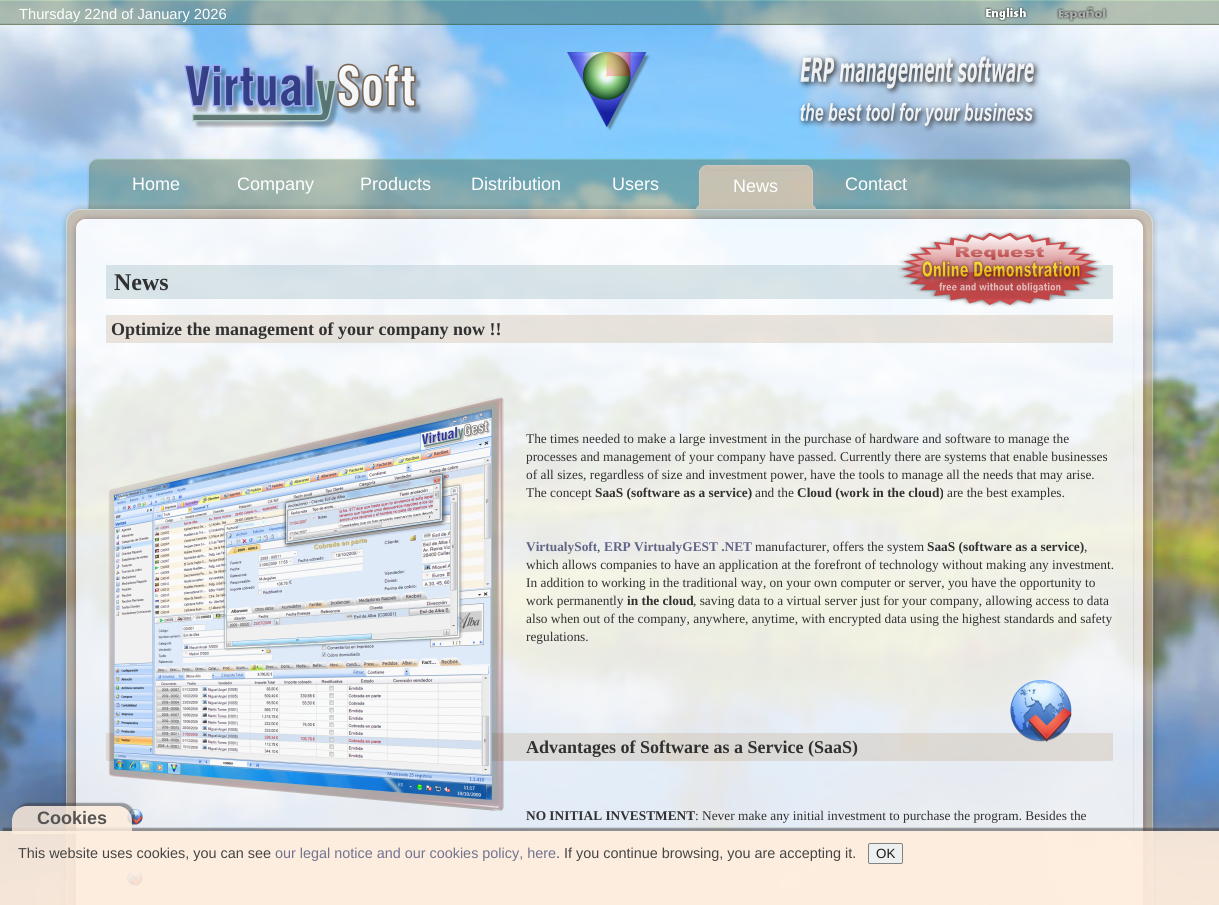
import math
import cairo

surface = cairo.ImageSurface(cairo.Format.RGB24, 1219, 905)
ctx = cairo.Context(surface)
options = cairo.FontOptions()
options.set_hint_metrics(cairo.HintMetrics.OFF)
options.set_hint_style(cairo.HintStyle.NONE)
ctx.set_font_options(options)
ctx.set_miter_limit(4)


def ink(r, g, b):
    ctx.set_source_rgb(r / 255, g / 255, b / 255)


def write(x, y, s, family, size, color, bold=False, italic=False):
    ctx.select_font_face(family, cairo.FontSlant.ITALIC if italic else cairo.FontSlant.NORMAL, cairo.FontWeight.BOLD if bold else cairo.FontWeight.NORMAL)
    ctx.set_font_size(size)
    ink(*color)
    ctx.move_to(x, y)
    ctx.show_text(s)


def round_path(x, y, w, h, r):
    ctx.new_sub_path()
    for i, (u, v) in enumerate([(x + w - r, y + h - r), (x + r, y + h - r), (x + r, y + r), (x + w - r, y + r)]):
        ctx.arc(u, v, r, i * math.pi / 2, (i + 1) * math.pi / 2)
    ctx.close_path()


def blur_box(x, y, w, h, r, blur, alpha):
    ctx.push_group_with_content(cairo.Content.ALPHA)
    ctx.set_operator(cairo.Operator.SOURCE)
    for i in range(15, -16, -2):
        e = blur * i / 6
        if min(w, h) + 2 * e > 0:
            ctx.set_source_rgba(0, 0, 0, alpha * math.erfc((i - 1) / 8.5) / 2)
            round_path(x - e, y - e, w + 2 * e, h + 2 * e, max(0, min(r + e + blur * .6, min(w, h) / 2 + e)))
            ctx.fill()
    ctx.mask(ctx.pop_group())


def paste(path, x, y, w, h):
    ctx.save()
    ctx.set_source_surface(cairo.ImageSurface.create_from_png(path), x, y)
    ctx.rectangle(x, y, w, h)
    ctx.fill()
    ctx.restore()


s1 = dict(family="Liberation Sans", size=14.7, color=(255, 255, 255))
s2 = dict(family="Liberation Sans", size=18, color=(255, 255, 255))
s3 = dict(family="Liberation Serif", size=24, color=(49, 49, 49), bold=True)
s4 = dict(family="Liberation Serif", size=18, color=(49, 49, 49), bold=True)
s5 = dict(family="Liberation Serif", size=13.35, color=(49, 49, 49))
s6 = dict(family="Liberation Serif", size=13.35, color=(49, 49, 49), bold=True)
s7 = dict(family="Liberation Serif", size=13.35, color=(98, 101, 134), bold=True)
s8 = dict(family="Liberation Sans", size=18, color=(86, 84, 82), bold=True)
s9 = dict(family="Liberation Sans", size=14.4, color=(71, 69, 68))
s10 = dict(family="Liberation Sans", size=14.4, color=(113, 115, 143))
s11 = dict(family="Liberation Sans", size=13.35, color=(23, 24, 24))

ink(255, 255, 255)
ctx.paint()
paste("pic1.png", 0, 0, 1219, 905)
paste("pic2.png", 0, 0, 1219, 25)
write(19, 19, "Thursday 22nd of January 2026", **s1)
paste("pic3.png", 984, 7, 44, 15)
paste("pic4.png", 1056, 6, 52, 16)
paste("pic5.png", 184, 63, 238, 65)
paste("pic6.png", 567, 52, 83, 79)
paste("pic7.png", 798, 54, 243, 78)
paste("pic16.png", 86, 204, 1047, 25)
paste("pic8.png", 87, 158, 14, 51)
paste("pic9.png", 1118, 158, 14, 51)
paste("pic10.png", 101, 158, 1017, 51)
write(132, 190, "Home", **s2)
write(237, 190, "Company", **s2)
write(360, 190, "Products", **s2)
write(471, 190, "Distribution", **s2)
write(612, 190, "Users", **s2)
paste("pic11.png", 696, 165, 120, 44)
paste("pic12.png", 696, 165, 120, 44)
paste("pic13.png", 696, 165, 120, 44)
write(733, 192, "News", **s2)
write(845, 190, "Contact", **s2)
paste("pic14.png", 61, 204, 25, 25)
paste("pic15.png", 1133, 204, 25, 25)
paste("pic17.png", 61, 229, 10, 676)
paste("pic18.png", 1148, 229, 10, 676)
paste("pic19.png", 71, 229, 15, 676)
paste("pic20.png", 1133, 229, 15, 676)
ctx.set_source_rgba(1, 1, 1, 0.85)
ctx.rectangle(86, 229, 1047, 676)
ctx.fill()
ctx.set_source_rgba(0.643, 0.745, 0.776, 0.38)
ctx.rectangle(106, 265, 1007, 34)
ctx.fill()
paste("pic21.png", 897, 231, 206, 76)
write(114, 290, "News", **s3)
ctx.set_source_rgba(0.765, 0.671, 0.553, 0.3)
ctx.rectangle(106, 315, 1007, 28)
ctx.fill()
write(111, 335, "Optimize the management of your company now !!", **s4)
ctx.set_source_rgba(0.765, 0.671, 0.553, 0.3)
ctx.rectangle(106, 733, 1007, 28)
ctx.fill()
paste("pic24.png", 127, 809, 16, 16)
paste("pic22.png", 108, 396, 396, 416)
write(526, 443, "The times needed to make a large investment in the purchase of hardware and software to manage the", **s5)
write(526, 461, "processes and management of your company have passed. Currently there are systems that enable businesses", **s5)
write(526, 479, "of all sizes, regardless of size and investment power, have the tools to manage all the needs that may arise.", **s5)
write(526, 497, "The concept", **s5)
write(595, 497, "SaaS (software as a service)", **s6)
write(755, 497, "and the", **s5)
write(797, 497, "Cloud (work in the cloud)", **s6)
write(947, 497, "are the best examples.", **s5)
write(526, 551, "VirtualySoft", **s7)
write(597, 551, ",", **s5)
write(604, 551, "ERP VirtualyGEST .NET", **s7)
write(755, 551, "manufacturer, offers the system", **s5)
write(927, 551, "SaaS (software as a service)", **s6)
write(1084, 551, ",", **s5)
write(526, 569, "which allows companies to have an application at the forefront of technology without making any investment.", **s5)
write(526, 587, "In addition to working in the traditional way, on your own computer or server, you have the opportunity to", **s5)
write(526, 605, "work permanently", **s5)
write(627, 605, "in the cloud", **s6)
write(693, 605, ", saving data to a virtual server just for your company, allowing access to data", **s5)
write(526, 623, "also when out of the company, anywhere, anytime, with encrypted data using the highest standards and safety", **s5)
write(526, 641, "regulations.", **s5)
paste("pic23.png", 1010, 680, 62, 63)
write(526, 753, "Advantages of Software as a Service (SaaS)", **s4)
write(526, 820, "NO INITIAL INVESTMENT", **s6)
write(695, 820, ": Never make any initial investment to purchase the program. Besides the", **s5)
paste("pic25.png", 127, 870, 16, 16)
ctx.save()
ctx.rectangle(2, 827, 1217, 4)
ctx.clip()
ink(50, 50, 50)
blur_box(3, 828, 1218, 74, 0, 0.5, 0.5)
ctx.restore()
ctx.set_source_rgba(1, 0.933, 0.867, 0.9)
ctx.rectangle(0, 831, 1219, 74)
ctx.fill()
ctx.save()
ctx.set_fill_rule(cairo.FillRule.EVEN_ODD)
ctx.new_path()
ctx.move_to(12, 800)
ctx.line_to(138, 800)
ctx.line_to(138, 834)
ctx.line_to(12, 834)
ctx.close_path()
ctx.move_to(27, 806)
ctx.line_to(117, 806)
ctx.curve_to(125.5, 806, 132, 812.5, 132, 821)
ctx.line_to(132, 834)
ctx.line_to(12, 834)
ctx.line_to(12, 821)
ctx.curve_to(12, 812.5, 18.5, 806, 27, 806)
ctx.close_path()
ctx.clip()
ink(50, 50, 50)
blur_box(15, 803, 120, 28, 15, 0.5, 0.45)
ctx.restore()
ctx.set_source_rgba(1, 0.933, 0.867, 0.81)
ctx.new_path()
ctx.move_to(27, 806)
ctx.line_to(117, 806)
ctx.curve_to(125.5, 806, 132, 812.5, 132, 821)
ctx.line_to(132, 834)
ctx.line_to(12, 834)
ctx.line_to(12, 821)
ctx.curve_to(12, 812.5, 18.5, 806, 27, 806)
ctx.close_path()
ctx.fill()
write(37, 824, "Cookies", **s8)
write(18, 858, "This website uses cookies, you can see", **s9)
write(275, 858, "our legal notice and our cookies policy, here", **s10)
write(556, 858, ". If you continue browsing, you are accepting it.", **s9)
ink(238, 239, 239)
round_path(868.5, 843.5, 34, 20, 1.5)
ctx.fill_preserve()
ink(129, 130, 130)
ctx.set_line_width(1)
ctx.stroke()
write(876, 858, "OK", **s11)
surface.write_to_png("screenshot.png")
